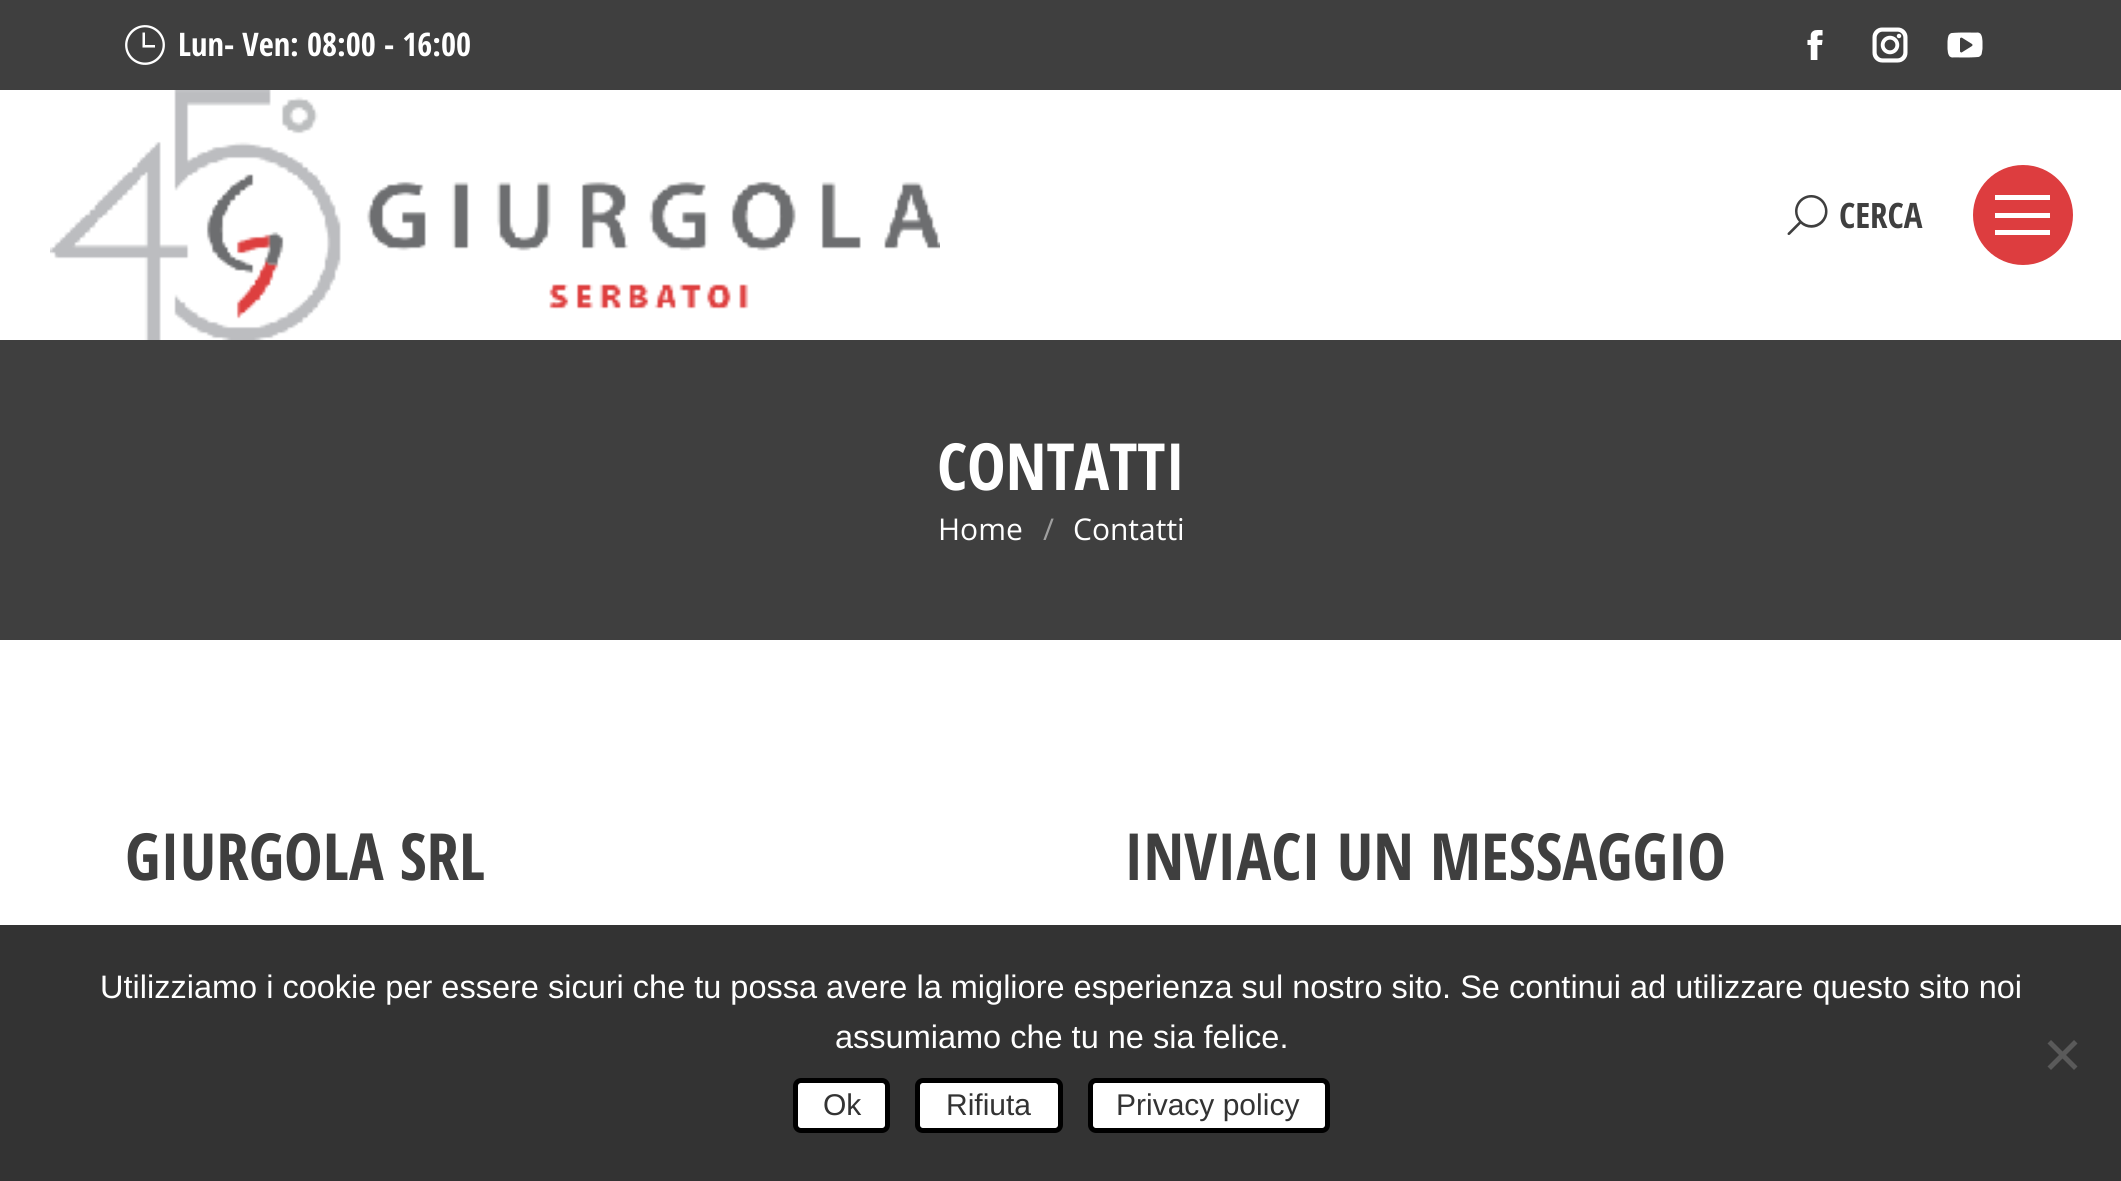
import math
import cairo

surface = cairo.ImageSurface(cairo.Format.RGB24, 2121, 1181)
ctx = cairo.Context(surface)
options = cairo.FontOptions()
options.set_hint_metrics(cairo.HintMetrics.OFF)
options.set_hint_style(cairo.HintStyle.NONE)
ctx.set_font_options(options)
ctx.set_miter_limit(4)


def ink(r, g, b):
    ctx.set_source_rgb(r / 255, g / 255, b / 255)


def write(x, y, s, family, size, color, bold=False, italic=False):
    ctx.select_font_face(family, cairo.FontSlant.ITALIC if italic else cairo.FontSlant.NORMAL, cairo.FontWeight.BOLD if bold else cairo.FontWeight.NORMAL)
    ctx.set_font_size(size)
    ink(*color)
    ctx.move_to(x, y)
    ctx.show_text(s)


def block(x, y, w, h, *color):
    ink(*color)
    ctx.rectangle(x, y, w, h)
    ctx.fill()


def round_path(x, y, w, h, r):
    ctx.new_sub_path()
    for i, (u, v) in enumerate([(x + w - r, y + h - r), (x + r, y + h - r), (x + r, y + r), (x + w - r, y + r)]):
        ctx.arc(u, v, r, i * math.pi / 2, (i + 1) * math.pi / 2)
    ctx.close_path()


def paste(path, x, y, w, h):
    ctx.save()
    ctx.set_source_surface(cairo.ImageSurface.create_from_png(path), x, y)
    ctx.rectangle(x, y, w, h)
    ctx.fill()
    ctx.restore()


s1 = dict(family="Open Sans Condensed", size=32.5, color=(255, 255, 255), bold=True)
s2 = dict(family="Open Sans Condensed", size=35, color=(63, 63, 63), bold=True)
s3 = dict(family="Open Sans Condensed", size=65, color=(255, 255, 255), bold=True)
s4 = dict(family="Open Sans", size=30, color=(255, 255, 255))
s5 = dict(family="Open Sans", size=30, color=(159, 159, 159))
s6 = dict(family="Open Sans Condensed", size=65, color=(63, 63, 63), bold=True)
s7 = dict(family="Liberation Sans", size=32.5, color=(255, 255, 255))
s8 = dict(family="Liberation Sans", size=30, color=(51, 51, 51))

ink(255, 255, 255)
ctx.paint()
block(0, 0, 2121, 90, 63, 63, 63)
paste("pic1.png", 125, 25, 40, 40)
write(178, 56, "Lun- Ven: 08:00 - 16:00", **s1)
paste("pic2.png", 1807, 30, 16, 30)
paste("pic3.png", 1872, 27, 36, 36)
paste("pic4.png", 1947, 32, 36, 26)
paste("pic5.png", 50, 90, 890, 250)
paste("pic6.png", 1787, 195, 41, 40)
write(1839, 228, "CERCA", **s2)
ink(221, 61, 63)
ctx.new_path()
ctx.arc(2023, 215, 50, 0, 2 * math.pi)
ctx.fill()
block(1995, 195, 55, 5, 255, 255, 255)
block(1995, 213, 55, 5, 255, 255, 255)
block(1995, 230, 55, 5, 255, 255, 255)
block(0, 340, 2121, 300, 63, 63, 63)
write(937, 490, "CONTATTI", **s3)
write(938, 540, "Home", **s4)
write(1043, 540, "/", **s5)
write(1073, 540, "Contatti", **s4)
write(125, 880, "GIURGOLA SRL", **s6)
write(1124, 880, "INVIACI UN MESSAGGIO", **s6)
block(0, 925, 2121, 256, 51, 51, 51)
write(100, 998, "Utilizziamo i cookie per essere sicuri che tu possa avere la migliore esperienza sul nostro sito. Se continui ad utilizzare questo sito noi", **s7)
write(835, 1048, "assumiamo che tu ne sia felice.", **s7)
ink(90, 90, 90)
ctx.new_path()
ctx.move_to(2074, 1040)
ctx.line_to(2077.5, 1043.5)
ctx.line_to(2051, 1070)
ctx.line_to(2047.5, 1066.5)
ctx.close_path()
ctx.fill()
ctx.new_path()
ctx.move_to(2047.5, 1043.5)
ctx.line_to(2051, 1040)
ctx.line_to(2077.5, 1066.5)
ctx.line_to(2074, 1070)
ctx.close_path()
ctx.fill()
ink(255, 255, 255)
round_path(795.5, 1080.5, 92, 50, 5.5)
ctx.fill_preserve()
ink(0, 0, 0)
ctx.set_line_width(5)
ctx.stroke()
write(823, 1115, "Ok", **s8)
ink(255, 255, 255)
round_path(917.5, 1080.5, 143, 50, 5.5)
ctx.fill_preserve()
ink(0, 0, 0)
ctx.stroke()
write(946, 1115, "Rifiuta", **s8)
ink(255, 255, 255)
round_path(1090.5, 1080.5, 237, 50, 5.5)
ctx.fill_preserve()
ink(0, 0, 0)
ctx.stroke()
write(1116, 1115, "Privacy policy", **s8)
surface.write_to_png("screenshot.png")
